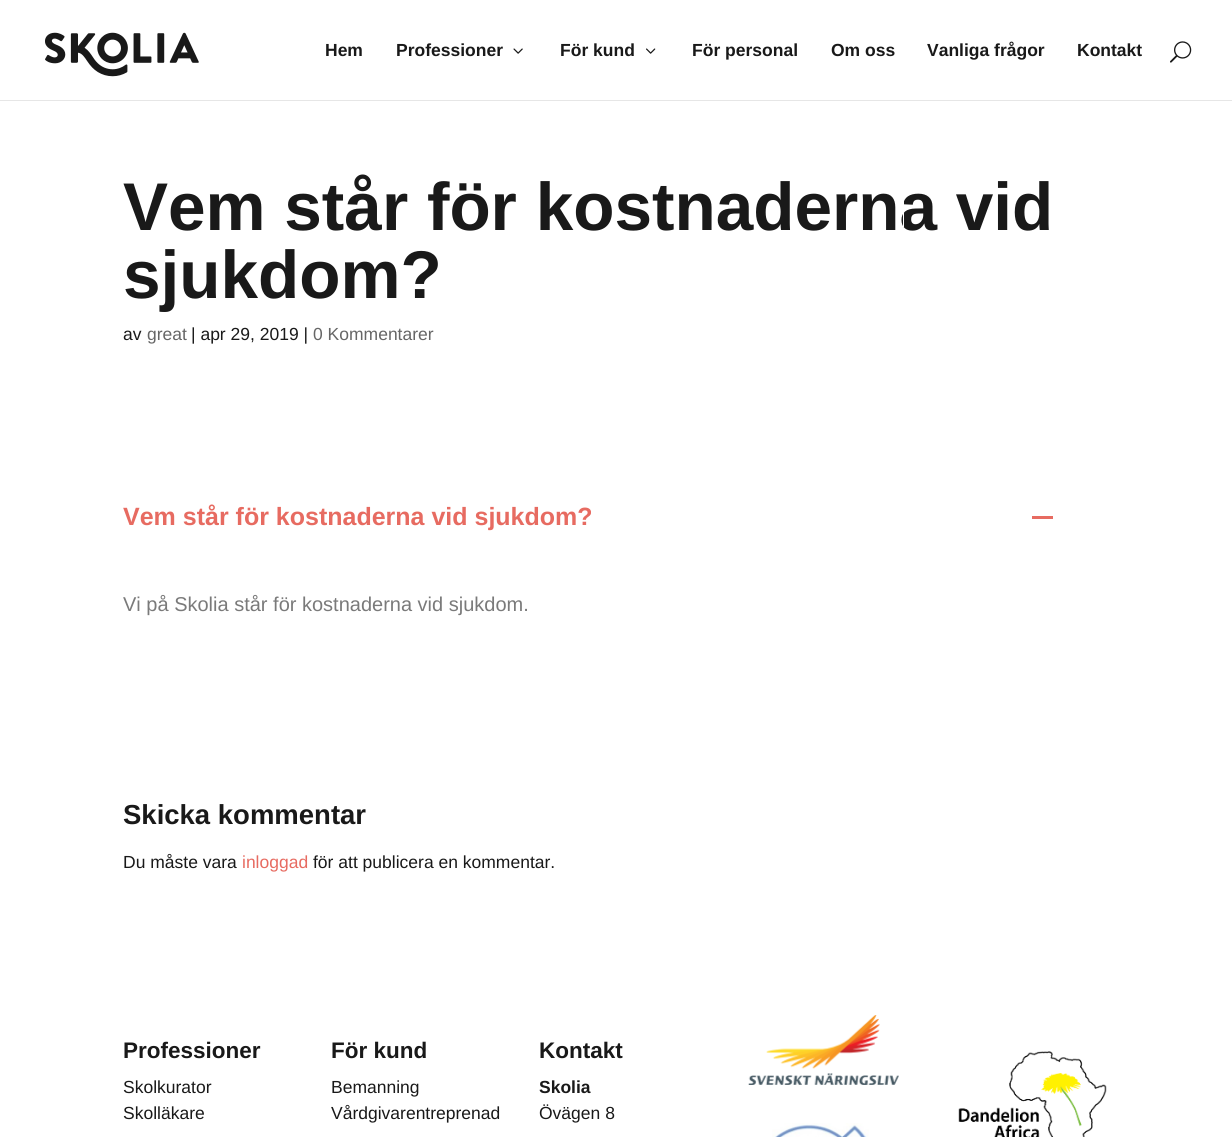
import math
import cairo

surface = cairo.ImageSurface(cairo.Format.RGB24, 1232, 1137)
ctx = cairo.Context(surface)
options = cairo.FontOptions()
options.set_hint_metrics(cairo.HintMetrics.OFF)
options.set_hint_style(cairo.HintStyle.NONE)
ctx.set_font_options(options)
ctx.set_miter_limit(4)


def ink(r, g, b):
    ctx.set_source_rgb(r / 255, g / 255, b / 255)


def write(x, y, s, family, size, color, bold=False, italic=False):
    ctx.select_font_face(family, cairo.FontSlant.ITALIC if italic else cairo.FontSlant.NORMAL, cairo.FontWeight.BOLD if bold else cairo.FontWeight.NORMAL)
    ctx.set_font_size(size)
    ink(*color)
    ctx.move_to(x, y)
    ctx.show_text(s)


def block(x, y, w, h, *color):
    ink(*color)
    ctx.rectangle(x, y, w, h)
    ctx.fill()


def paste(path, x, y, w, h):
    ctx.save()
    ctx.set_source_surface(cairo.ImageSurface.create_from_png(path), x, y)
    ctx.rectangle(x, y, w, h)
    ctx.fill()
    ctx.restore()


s1 = dict(family="Liberation Sans", size=17.5, color=(25, 25, 25), bold=True)
s2 = dict(family="Liberation Sans", size=67.5, color=(25, 25, 25), bold=True)
s3 = dict(family="Liberation Sans", size=17.5, color=(25, 25, 25))
s4 = dict(family="Liberation Sans", size=17.5, color=(102, 102, 102))
s5 = dict(family="Liberation Sans", size=25, color=(231, 107, 97), bold=True)
s6 = dict(family="Liberation Sans", size=20, color=(122, 122, 122))
s7 = dict(family="Liberation Sans", size=27.5, color=(25, 25, 25), bold=True)
s8 = dict(family="Liberation Sans", size=17.5, color=(231, 107, 97))
s9 = dict(family="Liberation Sans", size=22.5, color=(25, 25, 25), bold=True)

ink(255, 255, 255)
ctx.paint()
ink(230, 230, 230)
ctx.new_path()
ctx.move_to(0, 100)
ctx.line_to(0, 101)
ctx.line_to(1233, 101)
ctx.line_to(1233, 1)
ctx.line_to(1232, 1)
ctx.line_to(1232, 100)
ctx.close_path()
ctx.fill()
paste("pic1.png", 45, 32, 154, 45)
write(325, 56, "Hem", **s1)
write(396, 56, "Professioner", **s1)
paste("pic2.png", 513, 48, 10, 6)
write(560, 56, "För kund", **s1)
paste("pic3.png", 646, 48, 10, 6)
write(692, 56, "För personal", **s1)
write(831, 56, "Om oss", **s1)
write(927, 56, "Vanliga frågor", **s1)
write(1077, 56, "Kontakt", **s1)
paste("pic4.png", 1170, 41, 22, 22)
write(123, 230, "Vem står för kostnaderna vid", **s2)
write(123, 298, "sjukdom?", **s2)
write(123, 340, "av", **s3)
write(147, 340, "great", **s4)
write(191, 340, "| apr 29, 2019 |", **s3)
write(313, 340, "0 Kommentarer", **s4)
write(123, 525, "Vem står för kostnaderna vid sjukdom?", **s5)
block(1032, 516, 21, 3, 231, 107, 97)
write(123, 611, "Vi på Skolia står för kostnaderna vid sjukdom.", **s6)
write(123, 824, "Skicka kommentar", **s7)
write(123, 868, "Du måste vara", **s3)
write(242, 868, "inloggad", **s8)
write(313, 868, "för att publicera en kommentar.", **s3)
block(903, 201, 1, 26, 255, 255, 255)
write(123, 1058, "Professioner", **s9)
write(123, 1093, "Skolkurator", **s3)
write(123, 1119, "Skolläkare", **s3)
write(331, 1058, "För kund", **s9)
write(331, 1093, "Bemanning", **s3)
write(331, 1119, "Vårdgivarentreprenad", **s3)
write(539, 1058, "Kontakt", **s9)
write(539, 1093, "Skolia", **s1)
write(539, 1119, "Övägen 8", **s3)
paste("pic5.png", 748, 1015, 151, 70)
paste("pic6.png", 772, 1123, 97, 14)
paste("pic7.png", 958, 1051, 149, 86)
surface.write_to_png("screenshot.png")
